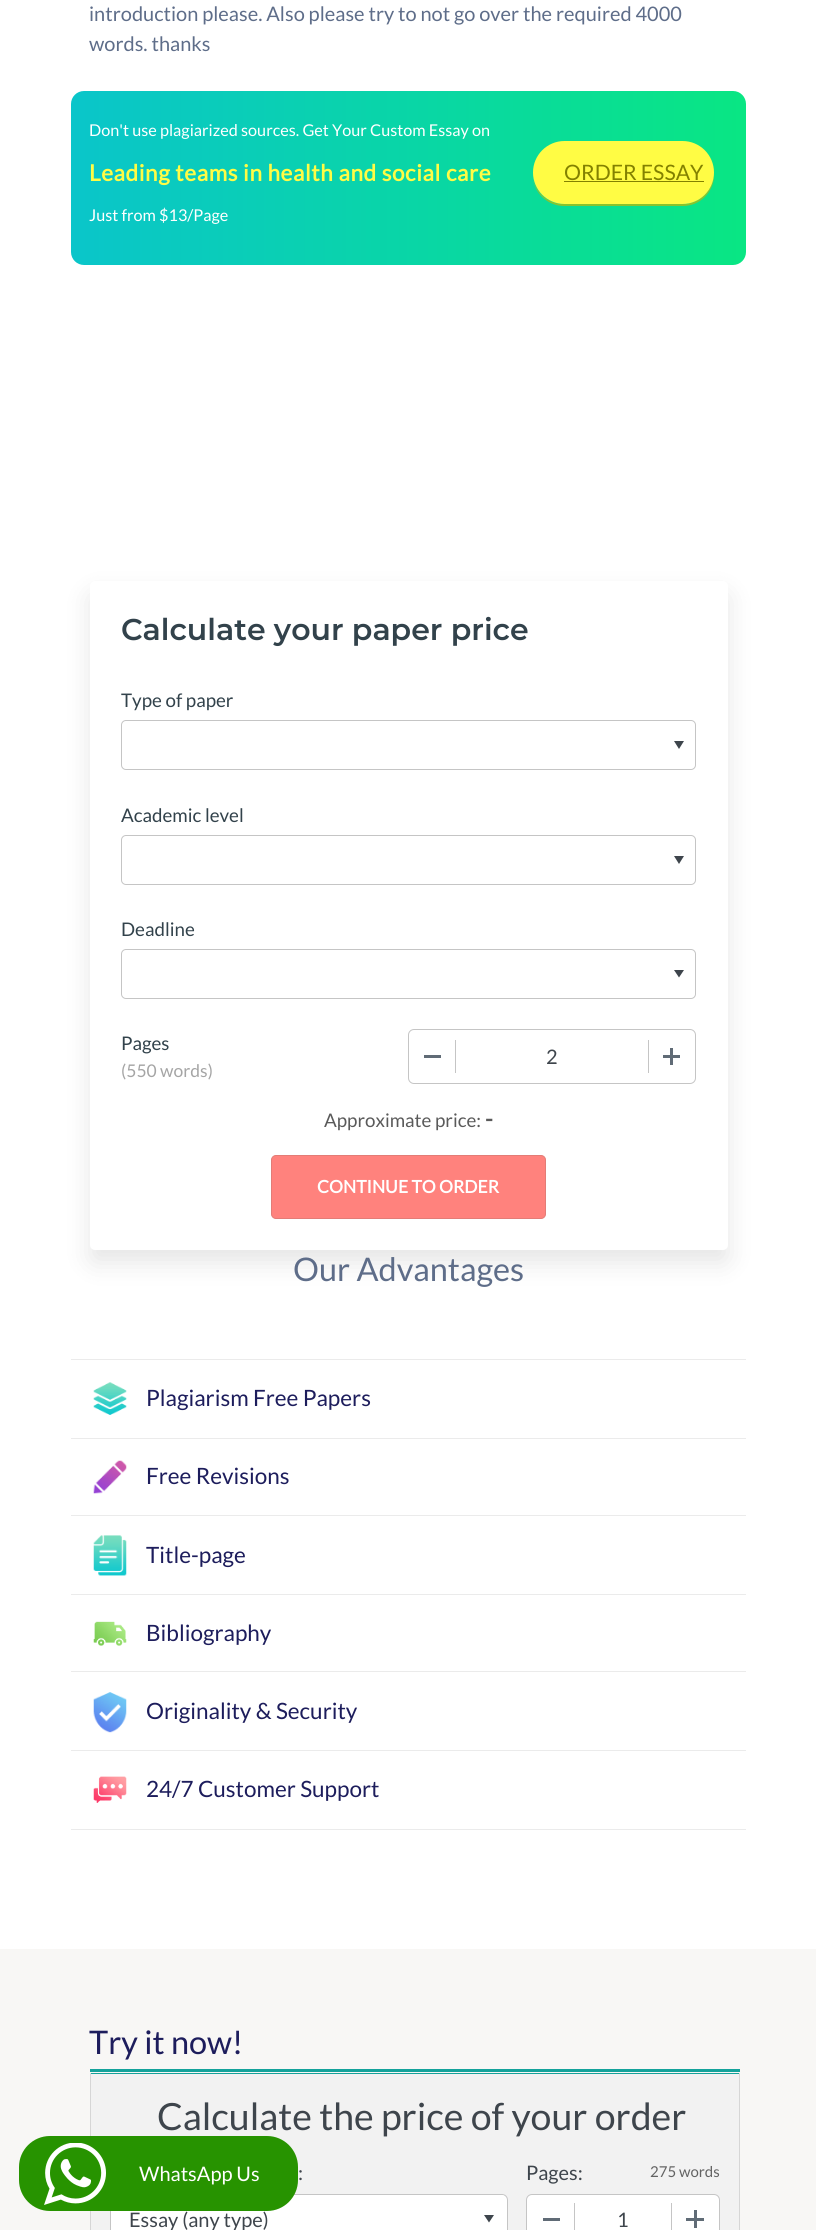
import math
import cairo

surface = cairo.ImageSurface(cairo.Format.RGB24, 816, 2230)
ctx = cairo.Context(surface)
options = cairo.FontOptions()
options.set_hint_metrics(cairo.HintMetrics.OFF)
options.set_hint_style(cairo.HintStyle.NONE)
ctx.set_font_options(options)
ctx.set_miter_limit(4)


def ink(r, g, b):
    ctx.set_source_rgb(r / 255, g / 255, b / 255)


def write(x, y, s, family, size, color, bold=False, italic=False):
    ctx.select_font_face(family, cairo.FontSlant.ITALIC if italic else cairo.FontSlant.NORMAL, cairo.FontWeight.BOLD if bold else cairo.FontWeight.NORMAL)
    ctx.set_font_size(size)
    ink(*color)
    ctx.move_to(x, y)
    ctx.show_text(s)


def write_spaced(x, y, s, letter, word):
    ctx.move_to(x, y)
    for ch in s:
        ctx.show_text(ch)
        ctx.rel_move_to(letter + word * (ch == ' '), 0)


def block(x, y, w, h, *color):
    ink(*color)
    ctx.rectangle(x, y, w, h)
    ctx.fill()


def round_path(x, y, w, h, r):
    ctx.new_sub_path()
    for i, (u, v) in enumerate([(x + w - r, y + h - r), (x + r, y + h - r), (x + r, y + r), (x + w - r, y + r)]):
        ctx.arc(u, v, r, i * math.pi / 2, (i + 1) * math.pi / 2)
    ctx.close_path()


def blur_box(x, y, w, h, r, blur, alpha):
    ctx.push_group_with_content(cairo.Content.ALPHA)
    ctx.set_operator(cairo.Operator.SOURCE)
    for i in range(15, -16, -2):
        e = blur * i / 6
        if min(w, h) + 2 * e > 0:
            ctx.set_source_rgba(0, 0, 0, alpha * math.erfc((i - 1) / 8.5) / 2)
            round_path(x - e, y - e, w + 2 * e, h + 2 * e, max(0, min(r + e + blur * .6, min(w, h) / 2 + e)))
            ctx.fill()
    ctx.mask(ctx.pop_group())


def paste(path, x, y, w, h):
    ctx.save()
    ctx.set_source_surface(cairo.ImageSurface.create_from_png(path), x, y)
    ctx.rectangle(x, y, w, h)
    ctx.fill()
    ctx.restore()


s1 = dict(family="Lato", size=20, color=(94, 109, 137))
s2 = dict(family="Lato", size=16.25, color=(255, 255, 255))
s3 = dict(family="Lato", size=21.25, color=(131, 129, 0))
s4 = dict(family="Montserrat SemiBold", size=30, color=(50, 66, 75))
s5 = dict(family="Lato", size=18.75, color=(50, 66, 75))
s6 = dict(family="Lato", size=17.5, color=(165, 165, 165))
s7 = dict(family="Lato", size=20, color=(62, 69, 76))
s8 = dict(family="Lato", size=18.75, color=(90, 90, 90))
s9 = dict(family="Lato", size=22.5, color=(90, 90, 90), bold=True)
s10 = dict(family="Lato", size=17.5, color=(255, 255, 255), bold=True)
s11 = dict(family="Lato", size=32.5, color=(94, 109, 137))
s12 = dict(family="Lato", size=22.5, color=(29, 29, 92))
s13 = dict(family="Lato", size=32.5, color=(29, 29, 92))
s14 = dict(family="Lato", size=37.5, color=(62, 69, 76))
s15 = dict(family="Lato", size=15, color=(99, 99, 99))
s16 = dict(family="Lato", size=20, color=(255, 255, 255))

ink(255, 255, 255)
ctx.paint()
write(89, 21, "introduction please. Also please try to not go over the required 4000", **s1)
write(89, 51, "words. thanks", **s1)
gradient = cairo.LinearGradient(71, 178, 746, 178)
gradient.add_color_stop_rgba(0, 0.039, 0.773, 0.792, 1)
gradient.add_color_stop_rgba(1, 0.035, 0.902, 0.514, 1)
ctx.set_source(gradient)
round_path(71, 91, 675, 174, 13)
ctx.fill()
write(89, 136, "Don't use plagiarized sources. Get Your Custom Essay on", **s2)
ctx.select_font_face("Lato", cairo.FontSlant.NORMAL, cairo.FontWeight.BOLD)
ctx.set_font_size(22.5)
ink(255, 252, 69)
write_spaced(89, 181, "Leading teams in health and social care", 0.6, 0)
write(89, 221, "Just from $13/Page", **s2)
ink(137, 195, 46)
ctx.new_path()
ctx.move_to(533, 180)
ctx.curve_to(536, 195, 549, 206, 564, 206)
ctx.line_to(683, 206)
ctx.curve_to(700, 206, 714, 192, 714, 175)
ctx.line_to(714, 171)
ctx.line_to(714, 172)
ctx.curve_to(714, 190, 700, 204, 682, 204)
ctx.line_to(564, 204)
ctx.curve_to(549, 204, 537, 194, 533, 180)
ctx.close_path()
ctx.fill()
ink(255, 252, 68)
round_path(533, 141, 181, 63, 31.5)
ctx.fill()
write(564, 180, "ORDER ESSAY", **s3)
block(564, 181, 140, 1, 131, 129, 0)
ink(0, 0, 0)
blur_box(90, 594, 638, 669, 5, 12.5, 0.1)
ink(255, 255, 255)
round_path(90, 581, 638, 669, 5)
ctx.fill()
write(121, 640, "Calculate your paper price", **s4)
write(121, 707, "Type of paper", **s5)
ink(62, 69, 76)
ctx.new_path()
ctx.move_to(674, 741)
ctx.line_to(684, 741)
ctx.line_to(679, 749)
ctx.close_path()
ctx.fill()
round_path(121.5, 720.5, 574, 49, 4.5)
ink(197, 197, 197)
ctx.set_line_width(1)
ctx.stroke()
write(121, 822, "Academic level", **s5)
ink(62, 69, 76)
ctx.new_path()
ctx.move_to(674, 856)
ctx.line_to(684, 856)
ctx.line_to(679, 864)
ctx.close_path()
ctx.fill()
round_path(121.5, 835.5, 574, 49, 4.5)
ink(197, 197, 197)
ctx.stroke()
write(121, 936, "Deadline", **s5)
ink(62, 69, 76)
ctx.new_path()
ctx.move_to(674, 970)
ctx.line_to(684, 970)
ctx.line_to(679, 977.5)
ctx.close_path()
ctx.fill()
round_path(121.5, 949.5, 574, 49, 4.5)
ink(197, 197, 197)
ctx.stroke()
write(121, 1050, "Pages", **s5)
write(121, 1077, "(550 words)", **s6)
round_path(408.5, 1029.5, 287, 54, 5.5)
ink(197, 197, 197)
ctx.stroke()
block(424, 1055, 17, 3, 96, 107, 118)
block(455, 1040, 1, 33, 197, 197, 197)
write(546, 1064, "2", **s7)
block(648, 1040, 1, 33, 197, 197, 197)
block(663, 1055, 17, 3, 96, 107, 118)
block(670, 1048, 3, 17, 96, 107, 118)
write(324, 1127, "Approximate price:", **s8)
write(485, 1127, "-", **s9)
ink(255, 130, 125)
round_path(271.5, 1155.5, 274, 63, 4.5)
ctx.fill_preserve()
ink(227, 124, 118)
ctx.stroke()
write(317, 1193, "CONTINUE TO ORDER", **s10)
write(293, 1281, "Our Advantages", **s11)
block(71, 1359, 675, 1, 235, 235, 235)
paste("pic1.png", 93, 1382, 34, 33)
write(146, 1406, "Plagiarism Free Papers", **s12)
block(71, 1438, 675, 1, 235, 235, 235)
paste("pic2.png", 93, 1460, 34, 34)
write(146, 1484, "Free Revisions", **s12)
block(71, 1515, 675, 1, 235, 235, 235)
paste("pic3.png", 93, 1535, 34, 41)
write(146, 1563, "Title-page", **s12)
block(71, 1594, 675, 1, 235, 235, 235)
paste("pic4.png", 93, 1621, 34, 25)
write(146, 1641, "Bibliography", **s12)
block(71, 1671, 675, 1, 235, 235, 235)
paste("pic5.png", 93, 1692, 34, 41)
write(146, 1719, "Originality & Security", **s12)
block(71, 1750, 675, 1, 235, 235, 235)
block(71, 1829, 675, 1, 235, 235, 235)
paste("pic6.png", 93, 1776, 34, 27)
write(146, 1797, "24/7 Customer Support", **s12)
block(0, 1949, 816, 281, 248, 247, 245)
write(89, 2054, "Try it now!", **s13)
block(90, 2069, 650, 3, 20, 163, 155)
block(90, 2073, 650, 1, 20, 163, 155)
block(739, 2073, 1, 157, 214, 214, 214)
block(90, 2073, 1, 157, 214, 214, 214)
block(91, 2074, 648, 156, 242, 242, 242)
write(157, 2130, "Calculate the price of your order", **s14)
write(298, 2180, ":", **s7)
ink(255, 255, 255)
round_path(110.5, 2194.5, 397, 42, 5.5)
ctx.fill_preserve()
ink(197, 197, 197)
ctx.stroke()
write(129, 2227, "Essay (any type)", **s7)
ink(255, 255, 255)
ctx.new_path()
ctx.move_to(475, 2195)
ctx.line_to(501, 2195)
ctx.curve_to(504, 2195, 506, 2197, 506, 2200)
ctx.line_to(506, 2230)
ctx.curve_to(506, 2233, 504, 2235, 501, 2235)
ctx.line_to(475, 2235)
ctx.close_path()
ctx.fill()
ink(62, 69, 76)
ctx.new_path()
ctx.move_to(484, 2215)
ctx.line_to(494, 2215)
ctx.line_to(489, 2222.5)
ctx.close_path()
ctx.fill()
write(526, 2180, "Pages:", **s7)
write(650, 2177, "275 words", **s15)
ink(255, 255, 255)
round_path(526.5, 2194.5, 193, 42, 5.5)
ctx.fill_preserve()
ink(197, 197, 197)
ctx.stroke()
block(543, 2218, 17, 3, 96, 107, 118)
block(574, 2203, 1, 27, 197, 197, 197)
write(617, 2227, "1", **s7)
block(671, 2203, 1, 27, 197, 197, 197)
block(686, 2218, 18, 3, 96, 107, 118)
block(694, 2210, 3, 18, 96, 107, 118)
ink(39, 147, 0)
round_path(19, 2136, 279, 75, 31)
ctx.fill()
paste("pic7.png", 44, 2143, 62, 62)
write(139, 2181, "WhatsApp Us", **s16)
surface.write_to_png("screenshot.png")
